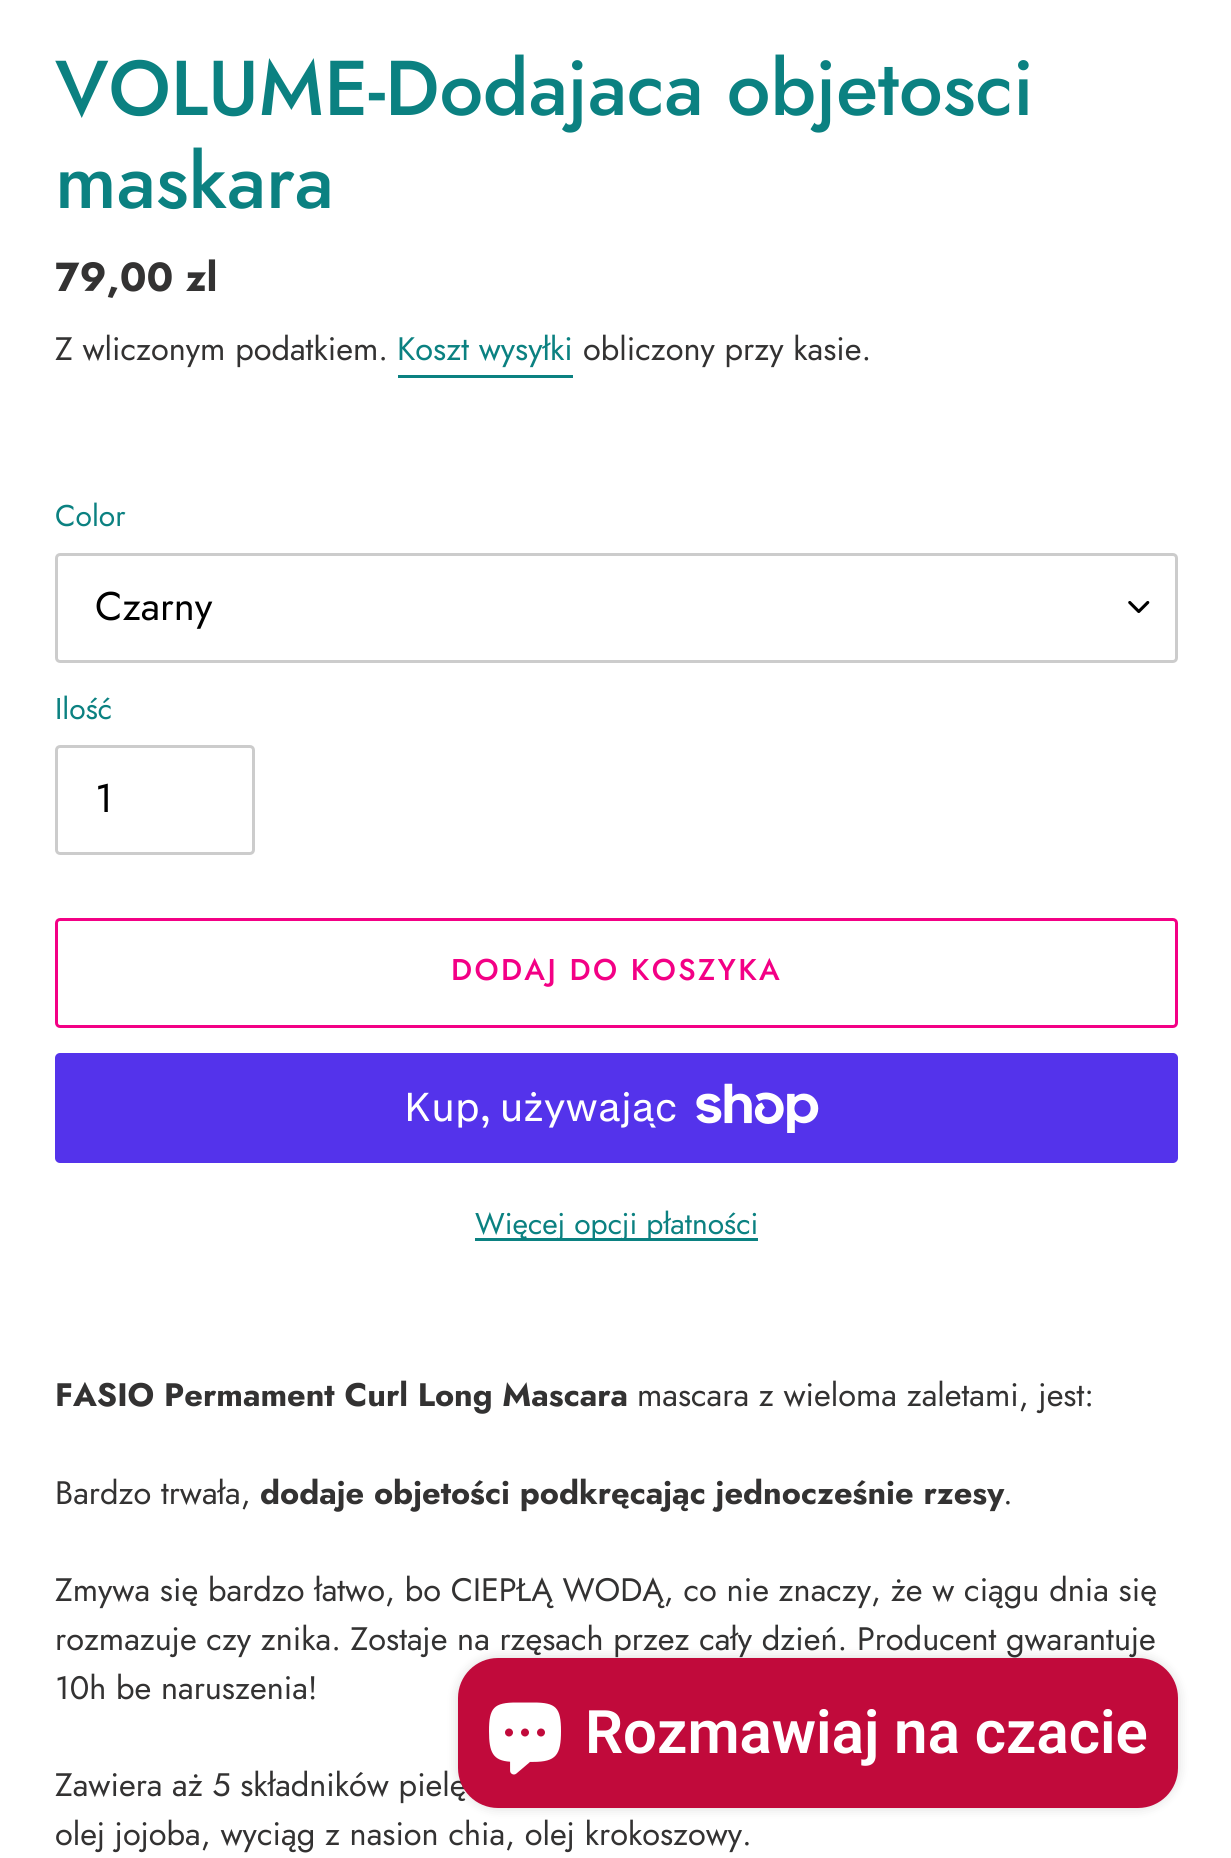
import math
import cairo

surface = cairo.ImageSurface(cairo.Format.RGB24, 1231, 1858)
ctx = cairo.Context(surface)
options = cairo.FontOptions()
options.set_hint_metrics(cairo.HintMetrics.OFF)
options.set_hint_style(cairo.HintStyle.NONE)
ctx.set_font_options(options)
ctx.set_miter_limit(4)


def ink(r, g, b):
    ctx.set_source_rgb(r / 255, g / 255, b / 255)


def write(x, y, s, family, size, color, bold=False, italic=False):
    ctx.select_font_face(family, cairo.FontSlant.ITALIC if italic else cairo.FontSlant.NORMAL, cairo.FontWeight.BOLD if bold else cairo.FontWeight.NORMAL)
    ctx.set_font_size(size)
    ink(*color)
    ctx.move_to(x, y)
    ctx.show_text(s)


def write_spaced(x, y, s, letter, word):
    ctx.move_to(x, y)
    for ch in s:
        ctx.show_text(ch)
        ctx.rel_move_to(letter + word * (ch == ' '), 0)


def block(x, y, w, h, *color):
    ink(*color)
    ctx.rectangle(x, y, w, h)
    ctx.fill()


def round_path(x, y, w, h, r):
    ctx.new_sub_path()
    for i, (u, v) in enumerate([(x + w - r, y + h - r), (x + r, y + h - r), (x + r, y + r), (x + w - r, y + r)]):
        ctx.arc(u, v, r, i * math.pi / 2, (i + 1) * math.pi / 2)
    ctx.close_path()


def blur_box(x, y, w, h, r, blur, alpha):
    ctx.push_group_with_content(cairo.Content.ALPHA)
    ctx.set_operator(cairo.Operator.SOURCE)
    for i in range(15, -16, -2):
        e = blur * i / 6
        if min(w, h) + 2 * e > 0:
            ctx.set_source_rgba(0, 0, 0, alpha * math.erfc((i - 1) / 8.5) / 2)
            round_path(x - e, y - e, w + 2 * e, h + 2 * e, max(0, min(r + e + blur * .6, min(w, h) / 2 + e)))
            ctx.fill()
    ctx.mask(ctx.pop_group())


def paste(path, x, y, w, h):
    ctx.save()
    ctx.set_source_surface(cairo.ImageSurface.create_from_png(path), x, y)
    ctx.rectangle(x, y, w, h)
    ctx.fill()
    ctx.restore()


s1 = dict(family="Jost Medium", size=77.5, color=(11, 129, 129))
s2 = dict(family="Jost", size=40.5, color=(51, 50, 50), bold=True)
s3 = dict(family="Jost", size=32.5, color=(51, 50, 50))
s4 = dict(family="Jost", size=32.5, color=(11, 129, 129))
s5 = dict(family="Jost", size=30, color=(11, 129, 129))
s6 = dict(family="Jost", size=40, color=(0, 0, 0))
s7 = dict(family="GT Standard", size=40, color=(255, 255, 255))
s8 = dict(family="Jost", size=32.5, color=(51, 50, 50), bold=True)
s9 = dict(family="Roboto SemiBold", size=60, color=(255, 255, 255))

ink(255, 255, 255)
ctx.paint()
write(55, 115, "VOLUME-Dodajaca objetosci", **s1)
write(55, 208, "maskara", **s1)
write(55, 291, "79,00 zl", **s2)
write(55, 360, "Z wliczonym podatkiem.", **s3)
write(397, 360, "Koszt wysyłki", **s4)
block(398, 375, 175, 3, 11, 129, 129)
write(583, 360, "obliczony przy kasie.", **s3)
write(55, 526, "Color", **s5)
paste("pic1.png", 1128, 601, 22, 12)
round_path(56.5, 554.5, 1120, 107, 3.5)
ink(204, 204, 204)
ctx.set_line_width(3)
ctx.stroke()
write(95, 620, "Czarny", **s6)
write(55, 719, "Ilość", **s5)
round_path(56.5, 746.5, 197, 107, 3.5)
ink(204, 204, 204)
ctx.stroke()
write(95, 812, "1", **s6)
round_path(56.5, 919.5, 1120, 107, 3.5)
ink(243, 0, 133)
ctx.stroke()
ctx.select_font_face("Jost Medium")
ctx.set_font_size(30)
write_spaced(451, 980, "DODAJ DO KOSZYKA", 2.4, 0)
ink(84, 51, 235)
round_path(55, 1053, 1123, 110, 5)
ctx.fill()
write(404, 1121, "Kup, używając", **s7)
paste("pic2.png", 696, 1083, 123, 50)
block(475, 1238, 283, 3, 11, 129, 129)
write(475, 1234, "Więcej opcji płatności", **s5)
write(55, 1406, "FASIO Permament Curl Long Mascara", **s8)
write(637, 1406, "mascara z wieloma zaletami, jest:", **s3)
write(55, 1504, "Bardzo trwała,", **s3)
write(260, 1504, "dodaje objetości podkręcając jednocześnie rzesy", **s8)
write(1003, 1504, ".", **s3)
write(55, 1601, "Zmywa się bardzo łatwo, bo CIEPŁĄ WODĄ, co nie znaczy, że w ciągu dnia się", **s3)
write_spaced(55, 1650, "rozmazuje czy znika. Zostaje na rzęsach przez cały dzień. Producent gwarantuje", 0, -0.1)
write(55, 1699, "10h be naruszenia!", **s3)
write_spaced(55, 1796, "Zawiera aż 5 składników pielę", 0, -0.1)
write(55, 1845, "olej jojoba, wyciąg z nasion chia, olej krokoszowy.", **s3)
ink(0, 0, 0)
blur_box(458, 1658, 720, 150, 40, 6, 0.15)
ink(193, 10, 59)
round_path(458, 1658, 720, 150, 40)
ctx.fill()
paste("pic3.png", 489, 1702, 72, 73)
write(585, 1753, "Rozmawiaj na czacie", **s9)
surface.write_to_png("screenshot.png")
